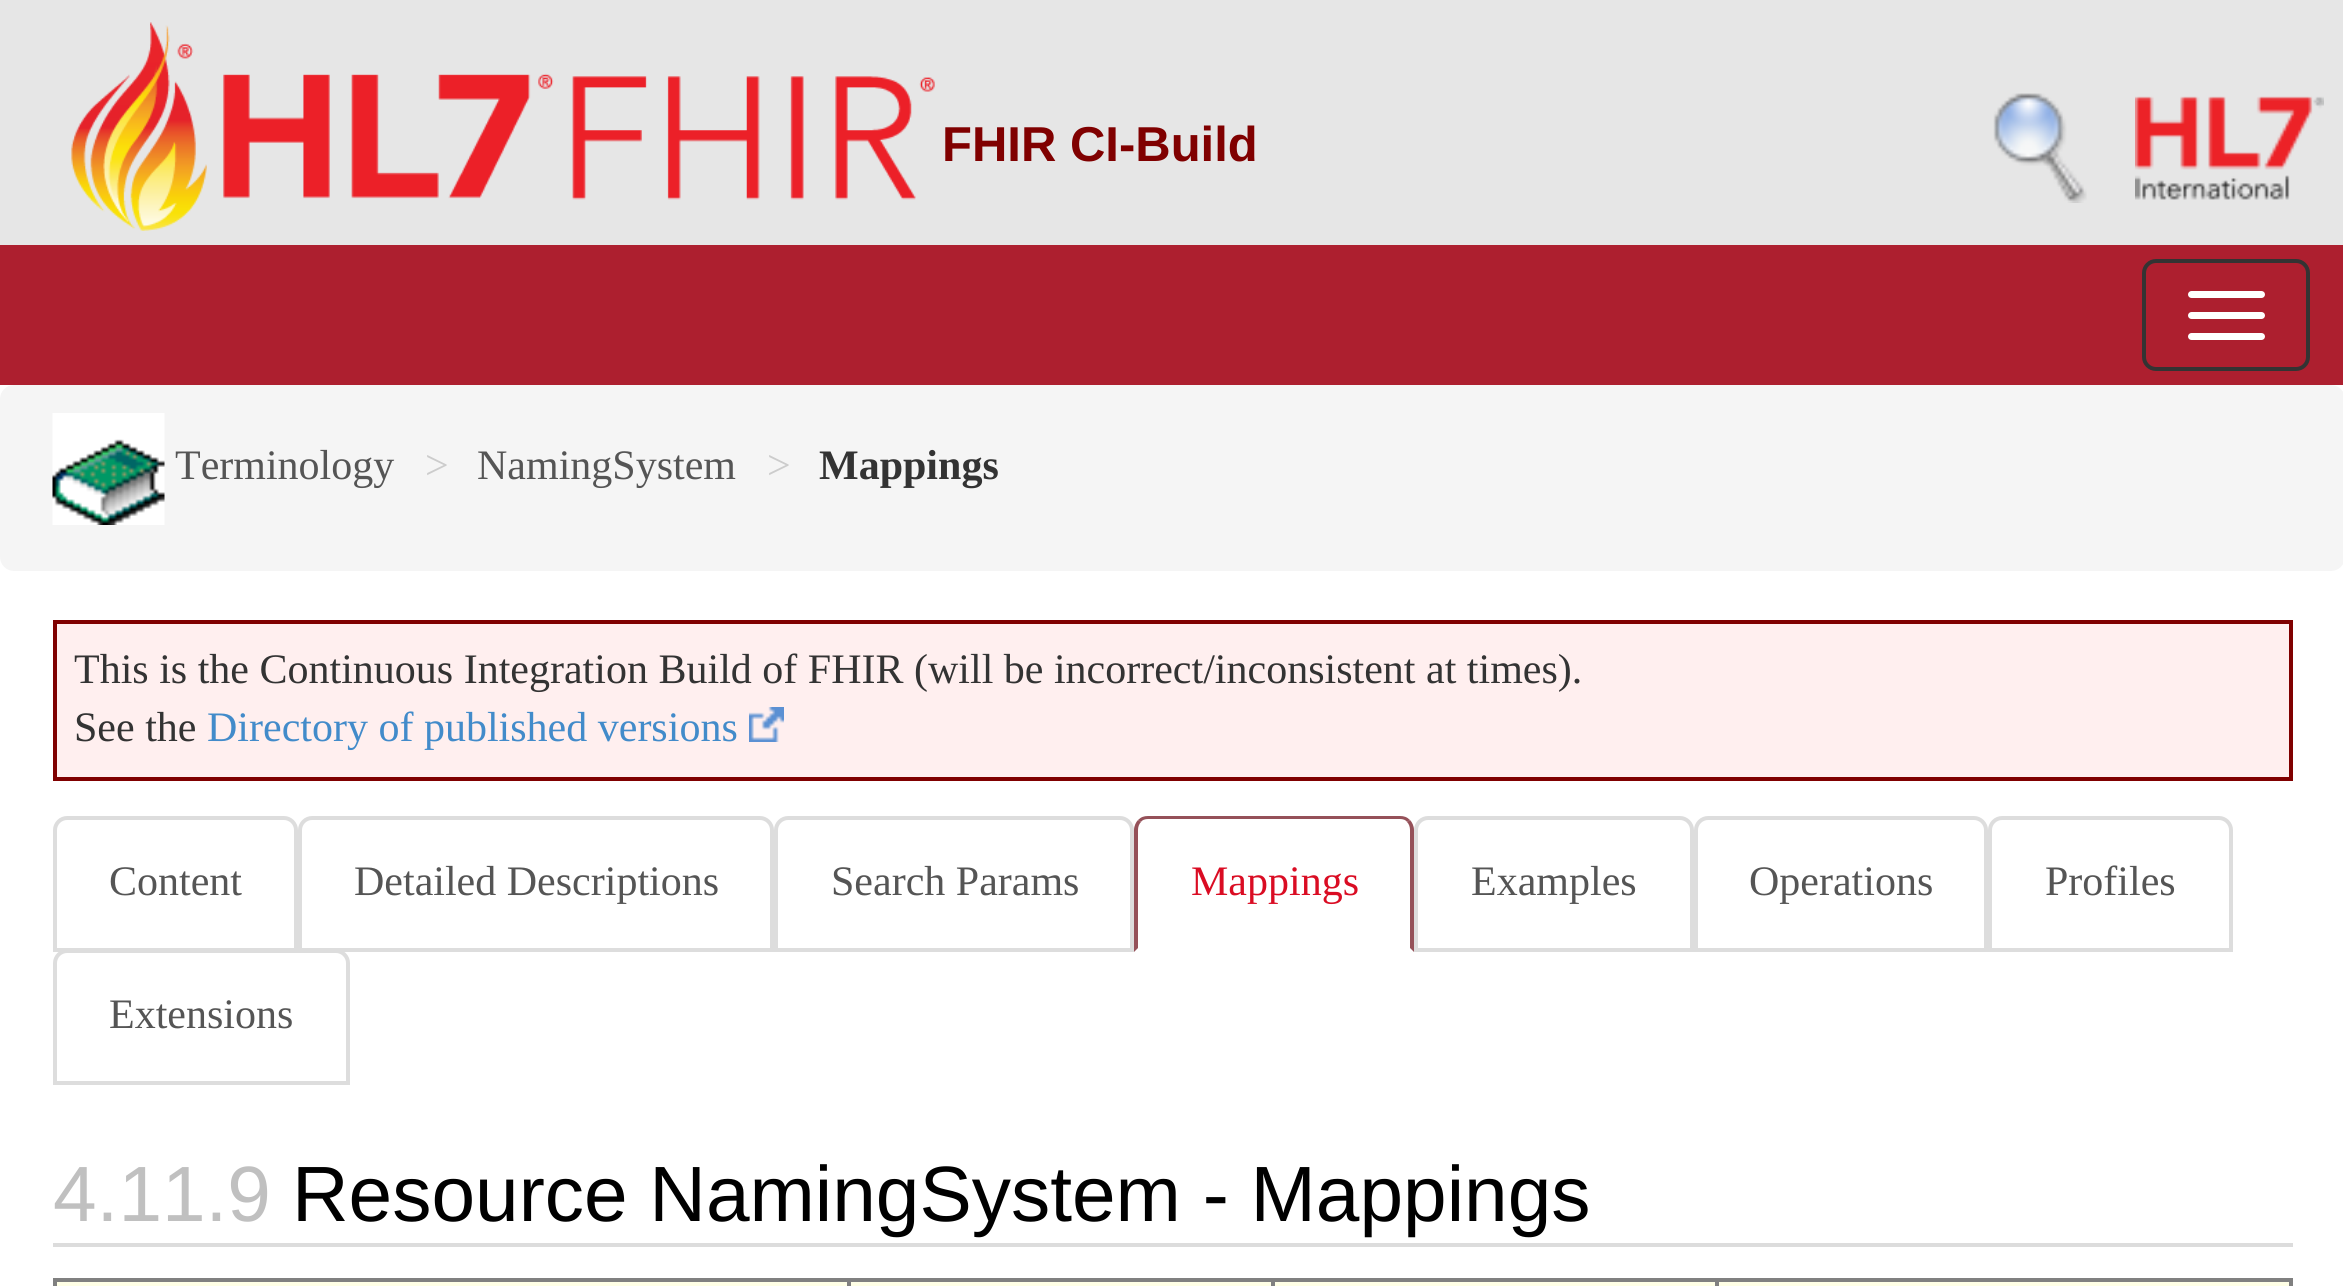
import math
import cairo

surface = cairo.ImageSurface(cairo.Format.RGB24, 2343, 1286)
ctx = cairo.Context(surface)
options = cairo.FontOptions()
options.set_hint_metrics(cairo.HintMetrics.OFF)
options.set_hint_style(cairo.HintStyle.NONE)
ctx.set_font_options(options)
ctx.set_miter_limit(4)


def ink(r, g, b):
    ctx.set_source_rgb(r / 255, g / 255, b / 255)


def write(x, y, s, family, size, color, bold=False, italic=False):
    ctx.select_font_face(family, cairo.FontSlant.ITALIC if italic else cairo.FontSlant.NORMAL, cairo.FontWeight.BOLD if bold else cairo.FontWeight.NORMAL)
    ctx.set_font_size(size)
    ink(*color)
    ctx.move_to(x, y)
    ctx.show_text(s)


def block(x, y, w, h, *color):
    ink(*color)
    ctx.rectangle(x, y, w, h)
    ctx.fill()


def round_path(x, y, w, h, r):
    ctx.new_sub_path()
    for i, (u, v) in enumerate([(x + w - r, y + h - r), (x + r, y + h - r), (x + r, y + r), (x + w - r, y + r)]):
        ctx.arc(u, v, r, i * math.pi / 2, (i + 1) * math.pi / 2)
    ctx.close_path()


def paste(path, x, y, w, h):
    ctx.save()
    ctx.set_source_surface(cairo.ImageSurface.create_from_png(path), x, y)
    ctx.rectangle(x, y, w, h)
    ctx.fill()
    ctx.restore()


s1 = dict(family="Liberation Sans", size=49, color=(128, 0, 0), bold=True)
s2 = dict(family="Liberation Serif", size=42, color=(85, 85, 85))
s3 = dict(family="Liberation Serif", size=42, color=(204, 204, 204))
s4 = dict(family="Liberation Serif", size=42, color=(51, 51, 51), bold=True)
s5 = dict(family="Liberation Serif", size=42, color=(51, 51, 51))
s6 = dict(family="Liberation Serif", size=42, color=(66, 139, 202))
s7 = dict(family="Liberation Serif", size=42, color=(218, 12, 35))
s8 = dict(family="Liberation Sans", size=78.4, color=(192, 192, 192))
s9 = dict(family="Liberation Sans", size=78.4, color=(0, 0, 0))

ink(255, 255, 255)
ctx.paint()
block(0, 0, 2343, 245, 230, 230, 230)
paste("pic1.png", 71, 22, 864, 209)
write(942, 161, "FHIR CI-Build", **s1)
paste("pic2.png", 1993, 93, 94, 110)
paste("pic3.png", 2135, 96, 189, 104)
block(0, 245, 2343, 140, 173, 31, 47)
round_path(2144, 261, 164, 108, 12)
ink(51, 51, 51)
ctx.set_line_width(4)
ctx.stroke()
ink(255, 255, 255)
round_path(2188, 291, 77, 7, 3.5)
ctx.fill()
round_path(2188, 312, 77, 7, 3.5)
ctx.fill()
round_path(2188, 333, 77, 7, 3.5)
ctx.fill()
ink(245, 245, 245)
round_path(0, 385, 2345, 186, 14)
ctx.fill()
paste("pic4.png", 52, 413, 113, 112)
write(175, 479, "Terminology", **s2)
write(425, 479, ">", **s3)
write(477, 479, "NamingSystem", **s2)
write(767, 479, ">", **s3)
write(819, 479, "Mappings", **s4)
ink(255, 239, 239)
ctx.rectangle(55, 622, 2236, 157)
ctx.fill_preserve()
ink(128, 0, 0)
ctx.stroke()
write(74, 683, "This is the Continuous Integration Build of FHIR (will be incorrect/inconsistent at times).", **s5)
write(74, 741, "See the", **s5)
write(207, 741, "Directory of published versions", **s6)
paste("pic5.png", 749, 707, 35, 35)
ctx.new_path()
ctx.move_to(67, 818)
ctx.line_to(284, 818)
ctx.curve_to(290.5, 818, 296, 823.5, 296, 830)
ctx.line_to(296, 950)
ctx.line_to(55, 950)
ctx.line_to(55, 830)
ctx.curve_to(55, 823.5, 60.5, 818, 67, 818)
ctx.close_path()
ink(221, 221, 221)
ctx.stroke()
write(109, 895, "Content", **s2)
ctx.new_path()
ctx.move_to(312, 818)
ctx.line_to(760, 818)
ctx.curve_to(766.5, 818, 772, 823.5, 772, 830)
ctx.line_to(772, 950)
ctx.line_to(300, 950)
ctx.line_to(300, 830)
ctx.curve_to(300, 823.5, 305.5, 818, 312, 818)
ctx.close_path()
ink(221, 221, 221)
ctx.stroke()
write(354, 895, "Detailed Descriptions", **s2)
ctx.new_path()
ctx.move_to(788, 818)
ctx.line_to(1120, 818)
ctx.curve_to(1126.5, 818, 1132, 823.5, 1132, 830)
ctx.line_to(1132, 950)
ctx.line_to(776, 950)
ctx.line_to(776, 830)
ctx.curve_to(776, 823.5, 781.5, 818, 788, 818)
ctx.close_path()
ink(221, 221, 221)
ctx.stroke()
write(831, 895, "Search Params", **s2)
ink(149, 81, 89)
ctx.new_path()
ctx.move_to(1148, 816)
ctx.curve_to(1144, 816, 1141, 817, 1138, 820)
ctx.line_to(1141, 822)
ctx.curve_to(1142, 820, 1145, 819, 1148, 819)
ctx.line_to(1400, 819)
ctx.curve_to(1403, 819, 1406, 820, 1407, 822)
ctx.line_to(1410, 820)
ctx.curve_to(1407, 817, 1404, 816, 1400, 816)
ctx.close_path()
ctx.fill()
ctx.new_path()
ctx.move_to(1410, 820)
ctx.curve_to(1412, 822, 1414, 826, 1414, 830)
ctx.line_to(1414, 952)
ctx.line_to(1410, 948)
ctx.line_to(1410, 830)
ctx.curve_to(1410, 827, 1409, 824, 1407, 822)
ctx.close_path()
ctx.fill()
ctx.new_path()
ctx.move_to(1134, 952)
ctx.line_to(1138, 948)
ctx.line_to(1138, 830)
ctx.curve_to(1138, 827, 1139, 824, 1141, 822)
ctx.line_to(1138, 820)
ctx.curve_to(1136, 822, 1134, 826, 1134, 830)
ctx.close_path()
ctx.fill()
write(1191, 895, "Mappings", **s7)
ctx.new_path()
ctx.move_to(1428, 818)
ctx.line_to(1680, 818)
ctx.curve_to(1686.5, 818, 1692, 823.5, 1692, 830)
ctx.line_to(1692, 950)
ctx.line_to(1416, 950)
ctx.line_to(1416, 830)
ctx.curve_to(1416, 823.5, 1421.5, 818, 1428, 818)
ctx.close_path()
ink(221, 221, 221)
ctx.stroke()
write(1471, 895, "Examples", **s2)
ctx.new_path()
ctx.move_to(1708, 818)
ctx.line_to(1974, 818)
ctx.curve_to(1980.5, 818, 1986, 823.5, 1986, 830)
ctx.line_to(1986, 950)
ctx.line_to(1696, 950)
ctx.line_to(1696, 830)
ctx.curve_to(1696, 823.5, 1701.5, 818, 1708, 818)
ctx.close_path()
ink(221, 221, 221)
ctx.stroke()
write(1749, 895, "Operations", **s2)
ctx.new_path()
ctx.move_to(2002, 818)
ctx.line_to(2219, 818)
ctx.curve_to(2225.5, 818, 2231, 823.5, 2231, 830)
ctx.line_to(2231, 950)
ctx.line_to(1990, 950)
ctx.line_to(1990, 830)
ctx.curve_to(1990, 823.5, 1995.5, 818, 2002, 818)
ctx.close_path()
ink(221, 221, 221)
ctx.stroke()
write(2045, 895, "Profiles", **s2)
ctx.new_path()
ctx.move_to(67, 951)
ctx.line_to(336, 951)
ctx.curve_to(342.5, 951, 348, 956.5, 348, 963)
ctx.line_to(348, 1083)
ctx.line_to(55, 1083)
ctx.line_to(55, 963)
ctx.curve_to(55, 956.5, 60.5, 951, 67, 951)
ctx.close_path()
ink(221, 221, 221)
ctx.stroke()
write(109, 1028, "Extensions", **s2)
block(53, 1243, 2240, 4, 220, 220, 220)
write(53, 1221, "4.11.9", **s8)
write(292, 1221, "Resource NamingSystem - Mappings", **s9)
block(56, 1282, 2237, 4, 255, 255, 230)
block(1715, 1278, 578, 4, 128, 128, 128)
block(1715, 1278, 4, 8, 128, 128, 128)
block(1271, 1278, 448, 4, 128, 128, 128)
block(1271, 1278, 4, 8, 128, 128, 128)
block(847, 1278, 427, 4, 128, 128, 128)
block(847, 1278, 4, 8, 128, 128, 128)
block(53, 1278, 798, 4, 128, 128, 128)
block(53, 1278, 4, 8, 128, 128, 128)
block(2289, 1278, 4, 8, 128, 128, 128)
surface.write_to_png("screenshot.png")
